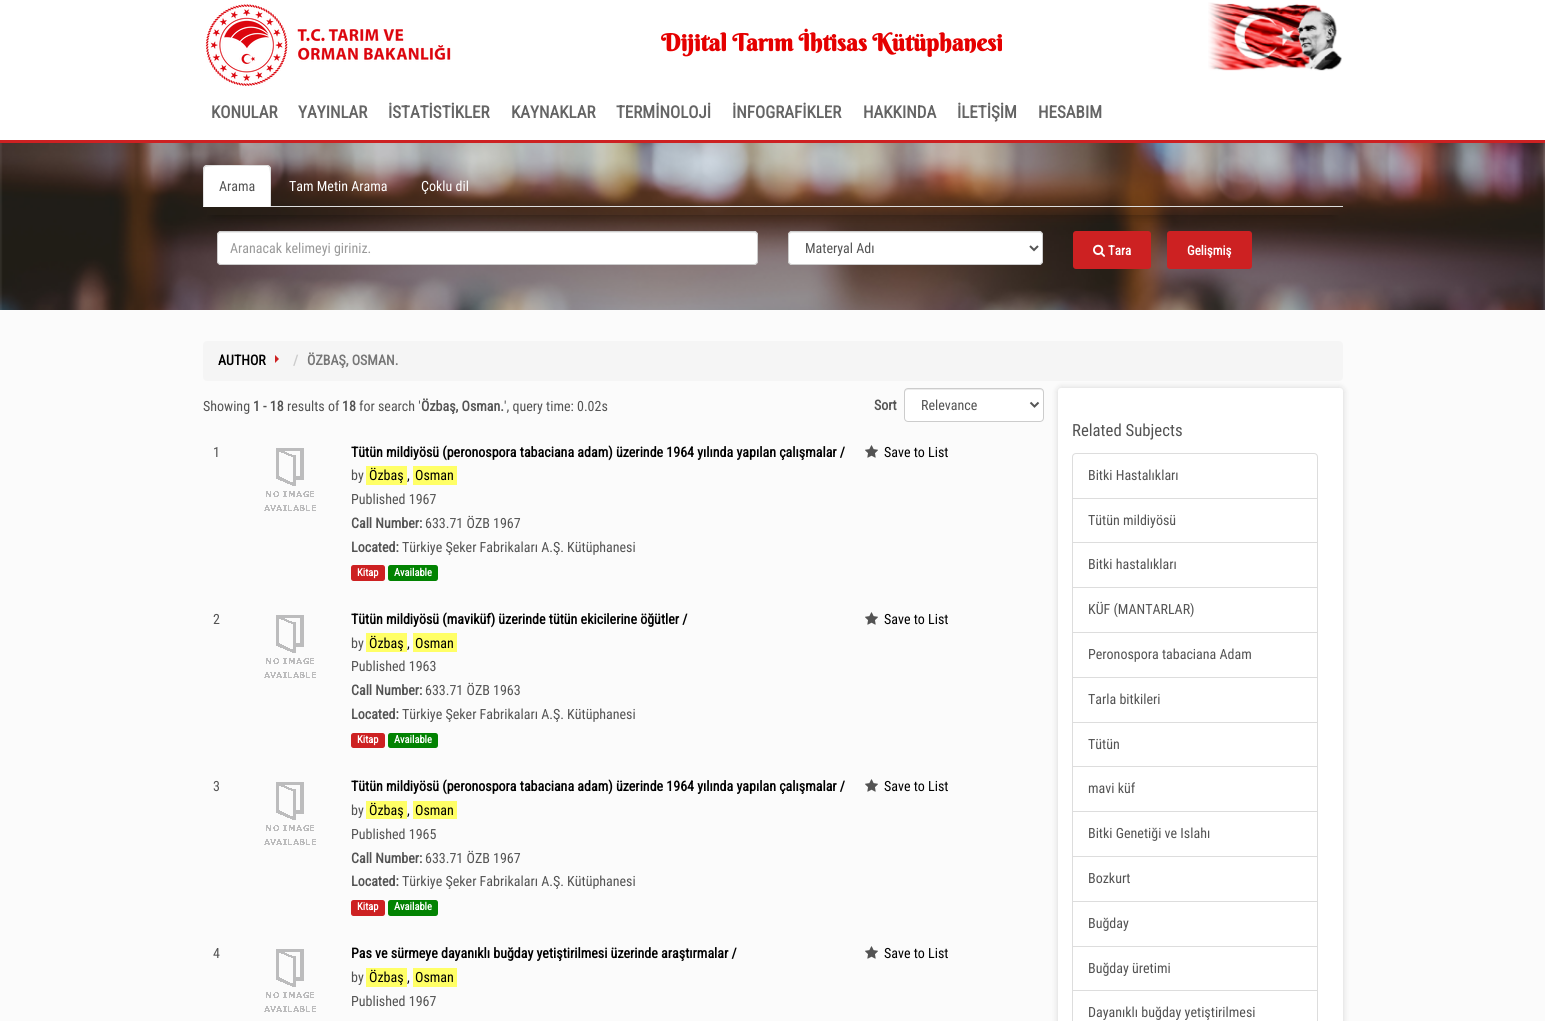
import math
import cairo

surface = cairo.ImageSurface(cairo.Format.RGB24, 1545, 1021)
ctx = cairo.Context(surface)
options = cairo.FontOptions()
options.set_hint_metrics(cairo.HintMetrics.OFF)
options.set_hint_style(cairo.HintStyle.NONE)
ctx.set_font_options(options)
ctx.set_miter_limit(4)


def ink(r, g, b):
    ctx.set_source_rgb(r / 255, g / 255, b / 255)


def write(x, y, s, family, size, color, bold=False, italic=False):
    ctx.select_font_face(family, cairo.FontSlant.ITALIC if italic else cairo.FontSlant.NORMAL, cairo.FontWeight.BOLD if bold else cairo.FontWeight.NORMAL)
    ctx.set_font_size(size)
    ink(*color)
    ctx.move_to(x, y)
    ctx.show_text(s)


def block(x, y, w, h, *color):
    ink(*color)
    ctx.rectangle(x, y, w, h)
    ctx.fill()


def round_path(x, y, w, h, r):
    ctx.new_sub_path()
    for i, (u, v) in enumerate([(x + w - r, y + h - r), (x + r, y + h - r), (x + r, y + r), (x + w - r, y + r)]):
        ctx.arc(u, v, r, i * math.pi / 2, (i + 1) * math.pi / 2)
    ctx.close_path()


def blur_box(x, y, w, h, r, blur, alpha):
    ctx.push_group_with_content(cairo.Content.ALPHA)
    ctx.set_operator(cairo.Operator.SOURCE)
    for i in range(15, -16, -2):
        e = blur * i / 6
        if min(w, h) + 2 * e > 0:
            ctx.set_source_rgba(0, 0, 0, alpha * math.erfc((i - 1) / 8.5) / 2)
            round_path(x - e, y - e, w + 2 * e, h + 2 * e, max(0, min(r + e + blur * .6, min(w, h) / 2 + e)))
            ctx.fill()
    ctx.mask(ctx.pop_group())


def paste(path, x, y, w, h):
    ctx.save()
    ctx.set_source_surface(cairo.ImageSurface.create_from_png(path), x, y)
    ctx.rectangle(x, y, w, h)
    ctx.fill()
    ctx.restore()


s1 = dict(family="Berkshire Swash", size=23.75, color=(229, 0, 0), bold=True)
s2 = dict(family="Roboto Condensed", size=17, color=(101, 101, 101), bold=True)
s3 = dict(family="Roboto Condensed", size=14, color=(83, 83, 83))
s4 = dict(family="Roboto Condensed", size=14, color=(255, 255, 255))
s5 = dict(family="Roboto Condensed", size=14, color=(153, 153, 153))
s6 = dict(family="Roboto Condensed", size=13, color=(255, 255, 255), bold=True)
s7 = dict(family="Roboto Condensed", size=14, color=(0, 0, 0), bold=True)
s8 = dict(family="Roboto Condensed", size=14, color=(204, 204, 204), bold=True)
s9 = dict(family="Roboto Condensed", size=14, color=(119, 119, 119), bold=True)
s10 = dict(family="Roboto Condensed", size=14, color=(83, 83, 83), bold=True)
s11 = dict(family="Roboto Condensed", size=14, color=(0, 0, 0))
s12 = dict(family="Roboto Condensed", size=10.5, color=(255, 255, 255), bold=True)
s13 = dict(family="Roboto Condensed", size=16.75, color=(83, 83, 83))

ink(251, 251, 251)
ctx.paint()
block(0, 0, 1545, 140, 255, 255, 255)
block(0, 140, 1545, 3, 205, 33, 34)
paste("pic1.png", 205, 4, 246, 82)
write(661, 51, "Dijital Tarım İhtisas Kütüphanesi", **s1)
paste("pic2.png", 1208, 2, 134, 69)
write(211, 118, "KONULAR", **s2)
write(298, 118, "YAYINLAR", **s2)
write(388, 118, "İSTATİSTİKLER", **s2)
write(511, 118, "KAYNAKLAR", **s2)
write(616, 118, "TERMİNOLOJİ", **s2)
write(732, 118, "İNFOGRAFİKLER", **s2)
write(863, 118, "HAKKINDA", **s2)
write(957, 118, "İLETİŞİM", **s2)
write(1038, 118, "HESABIM", **s2)
paste("pic3.png", 0, 143, 1545, 167)
ctx.save()
ctx.rectangle(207, 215, 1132, 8)
ctx.clip()
ink(0, 0, 0)
blur_box(213, 161, 1120, 54, 0, 5, 0.35)
ctx.restore()
block(271, 206, 1072, 1, 221, 221, 221)
ink(255, 255, 255)
ctx.new_path()
ctx.move_to(207, 165)
ctx.line_to(267, 165)
ctx.curve_to(269, 165, 271, 167, 271, 169)
ctx.line_to(271, 207)
ctx.line_to(203, 207)
ctx.line_to(203, 169)
ctx.curve_to(203, 167, 205, 165, 207, 165)
ctx.close_path()
ctx.fill()
ink(221, 221, 221)
ctx.new_path()
ctx.move_to(207, 165)
ctx.line_to(204, 166)
ctx.line_to(205, 167)
ctx.curve_to(207, 165, 251, 166, 257, 166)
ctx.line_to(267, 166)
ctx.line_to(269, 167)
ctx.line_to(270, 166)
ctx.line_to(267, 165)
ctx.close_path()
ctx.fill()
ctx.new_path()
ctx.move_to(271, 207)
ctx.line_to(271, 169)
ctx.curve_to(271, 168, 270, 167, 270, 166)
ctx.line_to(269, 167)
ctx.curve_to(271, 169, 270, 201, 270, 206)
ctx.close_path()
ctx.fill()
ctx.new_path()
ctx.move_to(203, 207)
ctx.line_to(204, 206)
ctx.curve_to(204, 201, 203, 169, 205, 167)
ctx.line_to(204, 166)
ctx.line_to(203, 169)
ctx.close_path()
ctx.fill()
write(219, 191, "Arama", **s3)
write(289, 191, "Tam Metin Arama", **s4)
write(421, 191, "Çoklu dil", **s4)
round_path(217, 231, 541, 34, 4)
ctx.fill()
ink(236, 236, 236)
ctx.new_path()
ctx.move_to(221, 233)
ctx.line_to(754, 233)
ctx.curve_to(756, 233, 757, 234, 757, 236)
ctx.line_to(757, 235)
ctx.curve_to(757, 233, 756, 232, 754, 232)
ctx.line_to(221, 232)
ctx.curve_to(219, 232, 218, 233, 218, 235)
ctx.line_to(218, 236)
ctx.curve_to(218, 234, 219, 233, 221, 233)
ctx.close_path()
ctx.fill()
round_path(217.5, 231.5, 540, 33, 3.5)
ink(204, 204, 204)
ctx.set_line_width(1)
ctx.stroke()
write(230, 253, "Aranacak kelimeyi giriniz.", **s5)
ink(255, 255, 255)
round_path(788, 231, 255, 34, 4)
ctx.fill()
ink(236, 236, 236)
ctx.new_path()
ctx.move_to(792, 233)
ctx.line_to(1040, 233)
ctx.line_to(1042, 234)
ctx.line_to(1042, 236)
ctx.curve_to(1042, 234, 1041, 232, 1039, 232)
ctx.line_to(792, 232)
ctx.curve_to(790, 232, 789, 234, 789, 236)
ctx.curve_to(789, 234, 790, 233, 792, 233)
ctx.close_path()
ctx.fill()
round_path(788.5, 231.5, 254, 33, 3.5)
ink(204, 204, 204)
ctx.stroke()
ctx.new_path()
ctx.move_to(1030, 246)
ctx.line_to(1034, 250)
ctx.line_to(1038, 246)
ink(85, 85, 85)
ctx.set_line_width(2)
ctx.stroke()
write(805, 253, "Materyal Adı", **s3)
ink(205, 33, 34)
round_path(1073, 231, 78, 38, 3)
ctx.fill()
paste("pic4.png", 1093, 244, 12, 13)
write(1108, 255, "Tara", **s6)
ink(205, 33, 34)
round_path(1167, 231, 85, 38, 3)
ctx.fill()
write(1187, 255, "Gelişmiş", **s6)
ink(245, 245, 245)
round_path(203, 341, 1140, 40, 4)
ctx.fill()
write(218, 365, "AUTHOR", **s7)
ink(205, 33, 34)
ctx.new_path()
ctx.move_to(275, 363)
ctx.line_to(275, 355)
ctx.line_to(279, 359)
ctx.close_path()
ctx.fill()
write(293, 365, "/", **s8)
write(307, 365, "ÖZBAŞ, OSMAN.", **s9)
write(203, 411, "Showing", **s3)
write(253, 411, "1 - 18", **s10)
write(287, 411, "results of", **s3)
write(342, 411, "18", **s10)
write(359, 411, "for search '", **s3)
write(421, 411, "Özbaş, Osman.", **s10)
write(504, 411, "', query time: 0.02s", **s3)
write(874, 410, "Sort", **s10)
ink(255, 255, 255)
round_path(904, 388, 140, 34, 4)
ctx.fill()
ink(236, 236, 236)
ctx.new_path()
ctx.move_to(908, 390)
ctx.line_to(1040, 390)
ctx.curve_to(1042, 390, 1043, 391, 1043, 393)
ctx.curve_to(1043, 391, 1043, 389, 1041, 389)
ctx.line_to(907, 389)
ctx.curve_to(905, 389, 905, 391, 905, 393)
ctx.curve_to(905, 391, 906, 390, 908, 390)
ctx.close_path()
ctx.fill()
round_path(904.5, 388.5, 139, 33, 3.5)
ink(204, 204, 204)
ctx.set_line_width(1)
ctx.stroke()
ctx.new_path()
ctx.move_to(1030.5, 402.5)
ctx.line_to(1034.5, 406.5)
ctx.line_to(1038.5, 402.5)
ink(85, 85, 85)
ctx.set_line_width(2)
ctx.stroke()
write(921, 410, "Relevance", **s3)
write(213, 457, "1", **s3)
paste("pic5.png", 264, 448, 52, 63)
write(351, 457, "Tütün mildiyösü (peronospora tabaciana adam) üzerinde 1964 yılında yapılan çalışmalar /", **s7)
write(351, 480, "by", **s3)
block(366, 466, 41, 19, 255, 255, 102)
write(369, 480, "Özbaş", **s11)
write(407, 480, ",", **s11)
block(413, 466, 44, 19, 255, 255, 102)
write(415, 480, "Osman", **s11)
write(351, 504, "Published 1967", **s3)
write(351, 528, "Call Number:", **s10)
write(425, 528, "633.71 ÖZB 1967", **s3)
write(351, 552, "Located:", **s10)
write(402, 552, "Türkiye Şeker Fabrikaları A.Ş. Kütüphanesi", **s3)
ink(205, 33, 34)
round_path(351, 565, 34, 16, 2.5)
ctx.fill()
write(357, 576, "Kitap", **s12)
ink(2, 131, 2)
round_path(388, 565, 50, 16, 2.5)
ctx.fill()
write(394, 576, "Available", **s12)
paste("pic6.png", 865, 445, 13, 13)
write(884, 457, "Save to List", **s11)
write(213, 624, "2", **s3)
paste("pic5.png", 264, 615, 52, 63)
write(351, 624, "Tütün mildiyösü (maviküf) üzerinde tütün ekicilerine öğütler /", **s7)
write(351, 648, "by", **s3)
block(366, 633, 41, 19, 255, 255, 102)
write(369, 648, "Özbaş", **s11)
write(407, 648, ",", **s11)
block(413, 633, 44, 19, 255, 255, 102)
write(415, 648, "Osman", **s11)
write(351, 671, "Published 1963", **s3)
write(351, 695, "Call Number:", **s10)
write(425, 695, "633.71 ÖZB 1963", **s3)
write(351, 719, "Located:", **s10)
write(402, 719, "Türkiye Şeker Fabrikaları A.Ş. Kütüphanesi", **s3)
ink(205, 33, 34)
round_path(351, 733, 34, 15, 2.5)
ctx.fill()
write(357, 743, "Kitap", **s12)
ink(2, 131, 2)
round_path(388, 733, 50, 15, 2.5)
ctx.fill()
write(394, 743, "Available", **s12)
paste("pic6.png", 865, 612, 13, 13)
write(884, 624, "Save to List", **s11)
write(213, 791, "3", **s3)
paste("pic5.png", 264, 782, 52, 63)
write(351, 791, "Tütün mildiyösü (peronospora tabaciana adam) üzerinde 1964 yılında yapılan çalışmalar /", **s7)
write(351, 815, "by", **s3)
block(366, 801, 41, 18, 255, 255, 102)
write(369, 815, "Özbaş", **s11)
write(407, 815, ",", **s11)
block(413, 801, 44, 18, 255, 255, 102)
write(415, 815, "Osman", **s11)
write(351, 839, "Published 1965", **s3)
write(351, 863, "Call Number:", **s10)
write(425, 863, "633.71 ÖZB 1967", **s3)
write(351, 886, "Located:", **s10)
write(402, 886, "Türkiye Şeker Fabrikaları A.Ş. Kütüphanesi", **s3)
ink(205, 33, 34)
round_path(351, 900, 34, 16, 2.5)
ctx.fill()
write(357, 910, "Kitap", **s12)
ink(2, 131, 2)
round_path(388, 900, 50, 16, 2.5)
ctx.fill()
write(394, 910, "Available", **s12)
paste("pic6.png", 865, 779, 13, 13)
write(884, 791, "Save to List", **s11)
write(213, 958, "4", **s3)
paste("pic5.png", 264, 949, 52, 63)
write(351, 958, "Pas ve sürmeye dayanıklı buğday yetiştirilmesi üzerinde araştırmalar /", **s7)
write(351, 982, "by", **s3)
block(366, 968, 41, 19, 255, 255, 102)
write(369, 982, "Özbaş", **s11)
write(407, 982, ",", **s11)
block(413, 968, 44, 19, 255, 255, 102)
write(415, 982, "Osman", **s11)
write(351, 1006, "Published 1967", **s3)
paste("pic6.png", 865, 946, 13, 13)
write(884, 958, "Save to List", **s11)
ink(0, 0, 0)
blur_box(1058, 388, 285, 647, 3, 3.5, 0.15)
ink(255, 255, 255)
round_path(1058, 388, 285, 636, 3)
ctx.fill()
write(1072, 436, "Related Subjects", **s13)
ctx.new_path()
ctx.move_to(1076, 453.5)
ctx.line_to(1314, 453.5)
ctx.curve_to(1316, 453.5, 1317.5, 455, 1317.5, 457)
ctx.line_to(1317.5, 498.5)
ctx.line_to(1072.5, 498.5)
ctx.line_to(1072.5, 457)
ctx.curve_to(1072.5, 455, 1074, 453.5, 1076, 453.5)
ctx.close_path()
ink(221, 221, 221)
ctx.set_line_width(1)
ctx.stroke()
write(1088, 480, "Bitki Hastalıkları", **s3)
ctx.rectangle(1072.5, 498.5, 245, 44)
ink(221, 221, 221)
ctx.stroke()
write(1088, 525, "Tütün mildiyösü", **s3)
ctx.rectangle(1072.5, 542.5, 245, 45)
ink(221, 221, 221)
ctx.stroke()
write(1088, 569, "Bitki hastalıkları", **s3)
ctx.rectangle(1072.5, 587.5, 245, 45)
ink(221, 221, 221)
ctx.stroke()
write(1088, 614, "KÜF (MANTARLAR)", **s3)
ctx.rectangle(1072.5, 632.5, 245, 45)
ink(221, 221, 221)
ctx.stroke()
write(1088, 659, "Peronospora tabaciana Adam", **s3)
ctx.rectangle(1072.5, 677.5, 245, 45)
ink(221, 221, 221)
ctx.stroke()
write(1088, 704, "Tarla bitkileri", **s3)
ctx.rectangle(1072.5, 722.5, 245, 44)
ink(221, 221, 221)
ctx.stroke()
write(1088, 749, "Tütün", **s3)
ctx.rectangle(1072.5, 766.5, 245, 45)
ink(221, 221, 221)
ctx.stroke()
write(1088, 793, "mavi küf", **s3)
ctx.rectangle(1072.5, 811.5, 245, 45)
ink(221, 221, 221)
ctx.stroke()
write(1088, 838, "Bitki Genetiği ve Islahı", **s3)
ctx.rectangle(1072.5, 856.5, 245, 45)
ink(221, 221, 221)
ctx.stroke()
write(1088, 883, "Bozkurt", **s3)
ctx.rectangle(1072.5, 901.5, 245, 45)
ink(221, 221, 221)
ctx.stroke()
write(1088, 928, "Buğday", **s3)
ctx.rectangle(1072.5, 946.5, 245, 44)
ink(221, 221, 221)
ctx.stroke()
write(1088, 973, "Buğday üretimi", **s3)
ctx.rectangle(1072.5, 990.5, 245, 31)
ink(221, 221, 221)
ctx.stroke()
write(1088, 1017, "Dayanıklı buğday yetiştirilmesi", **s3)
surface.write_to_png("screenshot.png")
